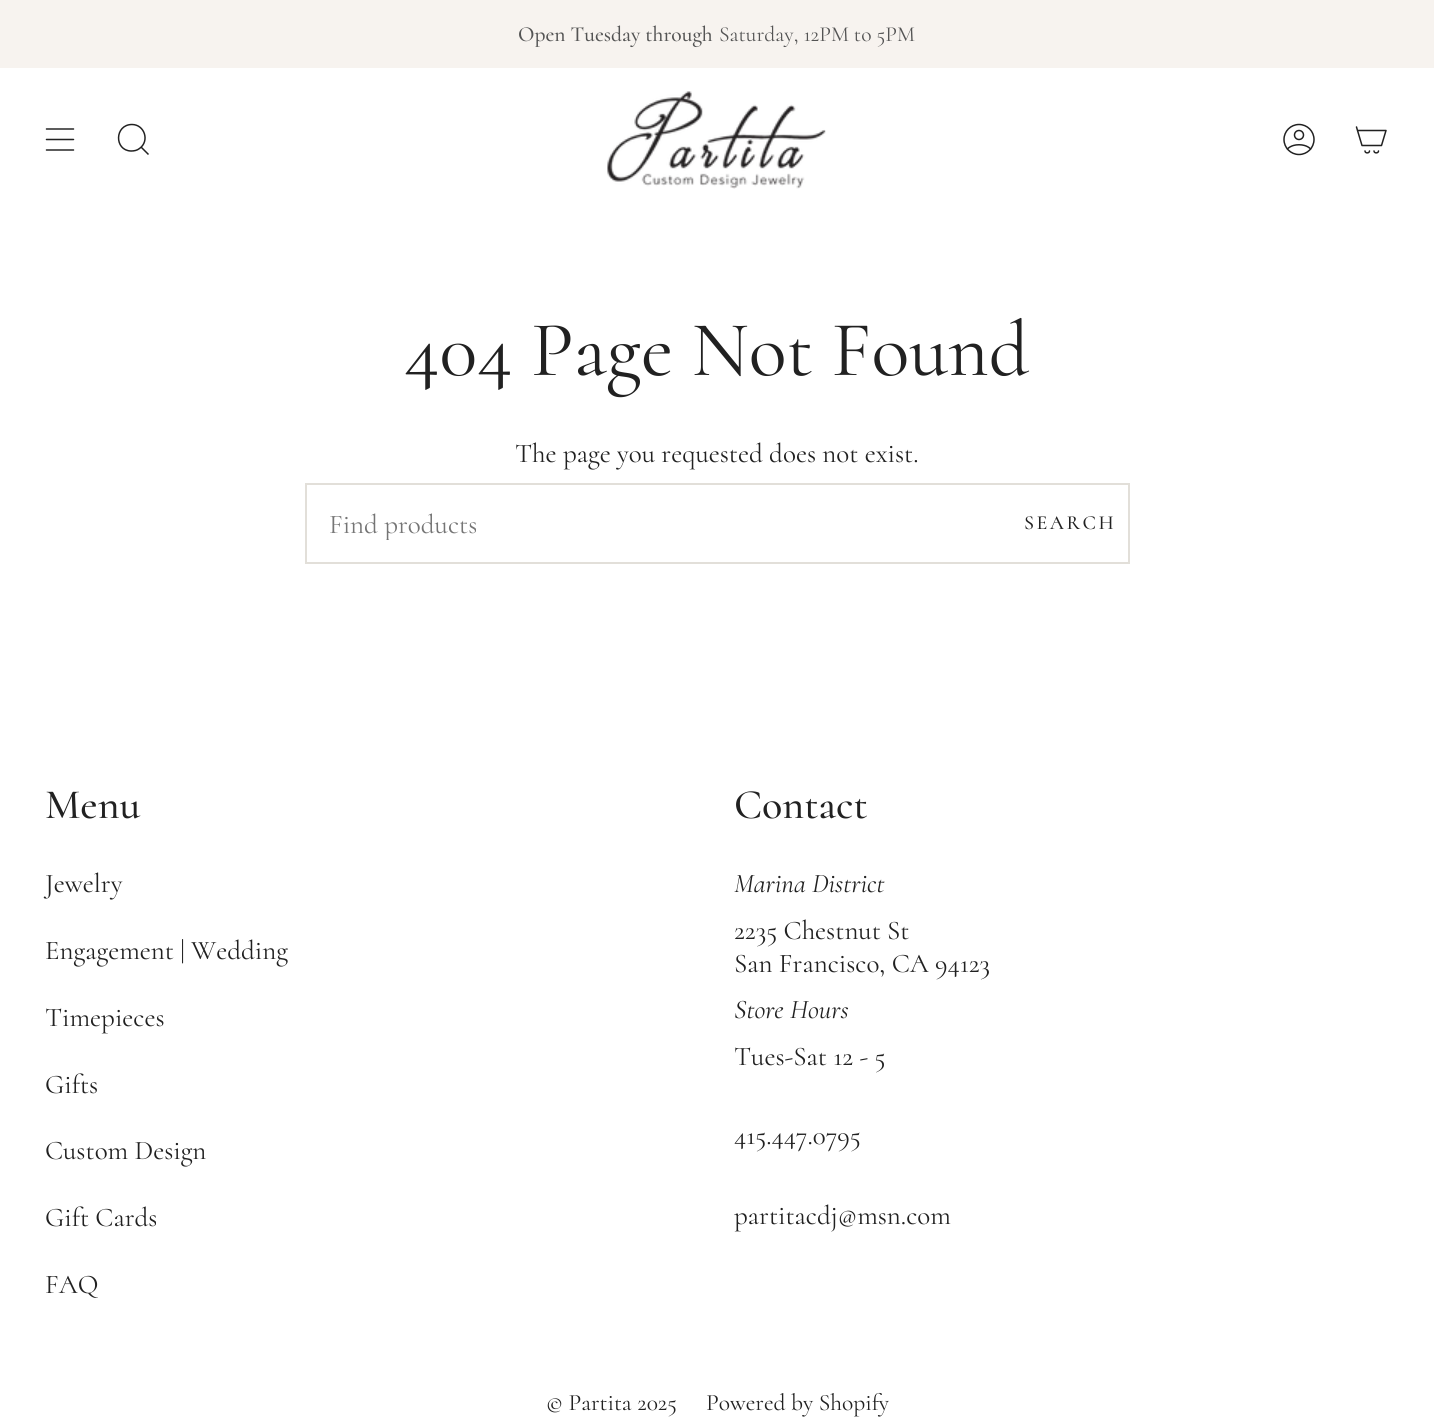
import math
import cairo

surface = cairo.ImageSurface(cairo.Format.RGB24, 1434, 1418)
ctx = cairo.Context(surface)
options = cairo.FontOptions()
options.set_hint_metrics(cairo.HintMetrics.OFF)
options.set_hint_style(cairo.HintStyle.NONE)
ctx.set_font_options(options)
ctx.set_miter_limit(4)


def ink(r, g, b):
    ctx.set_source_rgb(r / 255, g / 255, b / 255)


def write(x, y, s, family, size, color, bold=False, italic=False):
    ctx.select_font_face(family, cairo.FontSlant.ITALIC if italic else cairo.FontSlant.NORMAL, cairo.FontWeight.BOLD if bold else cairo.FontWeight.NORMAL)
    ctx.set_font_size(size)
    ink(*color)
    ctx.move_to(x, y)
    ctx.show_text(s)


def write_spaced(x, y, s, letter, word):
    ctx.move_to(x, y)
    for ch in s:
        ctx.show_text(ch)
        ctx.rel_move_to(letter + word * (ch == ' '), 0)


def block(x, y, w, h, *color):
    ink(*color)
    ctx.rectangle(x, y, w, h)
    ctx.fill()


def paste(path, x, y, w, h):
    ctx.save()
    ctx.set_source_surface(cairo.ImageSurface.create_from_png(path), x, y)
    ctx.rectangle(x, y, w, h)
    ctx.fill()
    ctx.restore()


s1 = dict(family="Cormorant Medium", size=21.5, color=(84, 84, 84))
s2 = dict(family="Cormorant", size=21.5, color=(84, 84, 84))
s3 = dict(family="Cormorant", size=78.75, color=(33, 33, 33))
s4 = dict(family="Cormorant", size=27, color=(33, 33, 33))
s5 = dict(family="Cormorant", size=27, color=(117, 117, 117))
s6 = dict(family="Cormorant Medium", size=42, color=(33, 33, 33))
s7 = dict(family="Cormorant", size=27, color=(33, 33, 33), italic=True)
s8 = dict(family="Cormorant", size=23.5, color=(33, 33, 33))

ink(255, 255, 255)
ctx.paint()
block(0, 0, 1434, 68, 247, 243, 239)
write(518, 41, "Open Tuesday through", **s1)
write(719, 41, "Saturday, 12PM to 5PM", **s2)
ctx.new_path()
ctx.move_to(46.5, 129)
ctx.line_to(73.5, 129)
ctx.move_to(46.5, 139.5)
ctx.line_to(73.5, 139.5)
ctx.move_to(46.5, 150)
ctx.line_to(73.5, 150)
ink(33, 33, 33)
ctx.set_line_width(1.5)
ctx.set_line_cap(cairo.LineCap.ROUND)
ctx.set_line_join(cairo.LineJoin.ROUND)
ctx.stroke()
ctx.new_path()
ctx.move_to(132, 124.5)
ctx.curve_to(144.5, 124.5, 150, 141, 139.5, 148.5)
ctx.curve_to(137, 150.5, 134, 151, 131, 151)
ctx.curve_to(114, 150.5, 114.5, 124.5, 132, 124.5)
ctx.close_path()
ctx.move_to(141, 147)
ctx.line_to(148.5, 154.5)
ctx.set_line_cap(cairo.LineCap.BUTT)
ctx.set_line_join(cairo.LineJoin.MITER)
ctx.stroke()
paste("pic1.png", 607, 91, 219, 98)
paste("pic2.png", 1283, 123, 32, 33)
ctx.new_path()
ctx.move_to(1357.5, 130.5)
ctx.line_to(1386, 130.5)
ctx.line_to(1381.5, 145.5)
ctx.line_to(1362, 145.5)
ctx.close_path()
ctx.move_to(1357.5, 130.5)
ctx.line_to(1356.5, 127)
ctx.move_to(1369.5, 151)
ctx.curve_to(1369.5, 153.5, 1365, 153.5, 1365, 151)
ctx.move_to(1378.5, 151)
ctx.curve_to(1378.5, 153.5, 1374, 153.5, 1374, 151)
ctx.set_line_cap(cairo.LineCap.ROUND)
ctx.set_line_join(cairo.LineJoin.ROUND)
ctx.stroke()
write(404, 375, "404 Page Not Found", **s3)
write(515, 462, "The page you requested does not exist.", **s4)
ctx.rectangle(306, 484, 823, 79)
ink(226, 223, 217)
ctx.set_line_width(2)
ctx.set_line_cap(cairo.LineCap.BUTT)
ctx.set_line_join(cairo.LineJoin.MITER)
ctx.stroke()
ctx.save()
ctx.rectangle(329, 507, 777, 33)
ctx.clip()
write(329, 533, "Find products", **s5)
ctx.restore()
ctx.select_font_face("Cormorant Medium")
ctx.set_font_size(20)
ink(33, 33, 33)
write_spaced(1024, 529, "SEARCH", 2.5, 0)
write(45, 818, "Menu", **s6)
write(45, 892, "Jewelry", **s4)
write(45, 959, "Engagement | Wedding", **s4)
write(45, 1026, "Timepieces", **s4)
write(45, 1093, "Gifts", **s4)
write(45, 1159, "Custom Design", **s4)
write(45, 1226, "Gift Cards", **s4)
write(45, 1293, "FAQ", **s4)
write(734, 818, "Contact", **s6)
write(734, 892, "Marina District", **s7)
write(734, 939, "2235 Chestnut St", **s4)
write(734, 972, "San Francisco, CA 94123", **s4)
write(734, 1018, "Store Hours", **s7)
write(734, 1065, "Tues-Sat 12 - 5", **s4)
write(734, 1144, "415.447.0795", **s4)
write(734, 1224, "partitacdj@msn.com", **s4)
write(546, 1410, "© Partita 2025", **s8)
write(706, 1410, "Powered by Shopify", **s8)
surface.write_to_png("screenshot.png")
